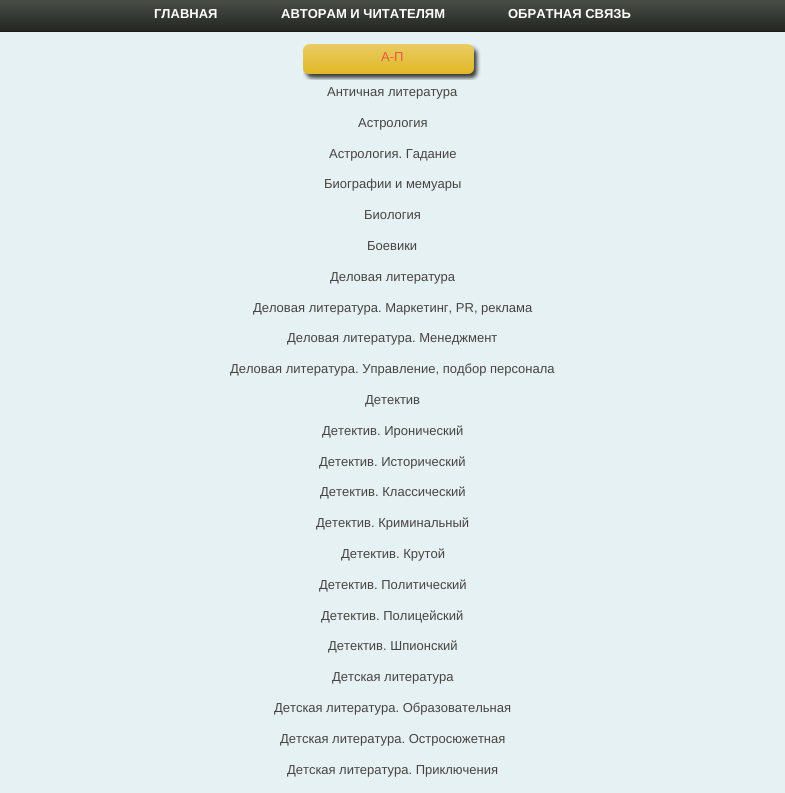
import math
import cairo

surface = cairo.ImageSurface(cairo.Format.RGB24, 785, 793)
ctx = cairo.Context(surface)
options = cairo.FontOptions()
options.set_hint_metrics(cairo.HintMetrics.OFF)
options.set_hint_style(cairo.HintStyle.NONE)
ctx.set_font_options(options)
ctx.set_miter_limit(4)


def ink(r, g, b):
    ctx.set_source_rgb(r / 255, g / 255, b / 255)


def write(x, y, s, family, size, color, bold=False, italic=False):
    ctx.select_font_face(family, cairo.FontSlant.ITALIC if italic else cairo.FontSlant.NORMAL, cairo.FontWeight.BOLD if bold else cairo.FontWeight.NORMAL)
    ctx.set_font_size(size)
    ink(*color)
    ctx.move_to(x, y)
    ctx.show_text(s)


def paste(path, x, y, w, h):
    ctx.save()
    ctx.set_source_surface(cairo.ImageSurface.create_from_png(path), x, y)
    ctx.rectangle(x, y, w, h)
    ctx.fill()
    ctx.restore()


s1 = dict(family="Liberation Sans", size=13, color=(255, 255, 255), bold=True)
s2 = dict(family="Liberation Sans", size=13, color=(237, 87, 67))
s3 = dict(family="Liberation Sans", size=13, color=(71, 67, 65))

ink(230, 241, 243)
ctx.paint()
paste("pic1.png", 0, 0, 785, 32)
write(154, 18, "ГЛАВНАЯ", **s1)
write(281, 18, "АВТОРАМ И ЧИТАТЕЛЯМ", **s1)
write(508, 18, "ОБРАТНАЯ СВЯЗЬ", **s1)
paste("pic2.png", 303, 44, 178, 36)
write(381, 61, "А-П", **s2)
write(327, 96, "Античная литература", **s3)
write(358, 127, "Астрология", **s3)
write(329, 158, "Астрология. Гадание", **s3)
write(324, 188, "Биографии и мемуары", **s3)
write(364, 219, "Биология", **s3)
write(367, 250, "Боевики", **s3)
write(330, 281, "Деловая литература", **s3)
write(253, 312, "Деловая литература. Маркетинг, PR, реклама", **s3)
write(287, 342, "Деловая литература. Менеджмент", **s3)
write(230, 373, "Деловая литература. Управление, подбор персонала", **s3)
write(365, 404, "Детектив", **s3)
write(322, 435, "Детектив. Иронический", **s3)
write(319, 466, "Детектив. Исторический", **s3)
write(320, 496, "Детектив. Классический", **s3)
write(316, 527, "Детектив. Криминальный", **s3)
write(341, 558, "Детектив. Крутой", **s3)
write(319, 589, "Детектив. Политический", **s3)
write(321, 620, "Детектив. Полицейский", **s3)
write(328, 650, "Детектив. Шпионский", **s3)
write(332, 681, "Детская литература", **s3)
write(274, 712, "Детская литература. Образовательная", **s3)
write(280, 743, "Детская литература. Остросюжетная", **s3)
write(287, 774, "Детская литература. Приключения", **s3)
surface.write_to_png("screenshot.png")
